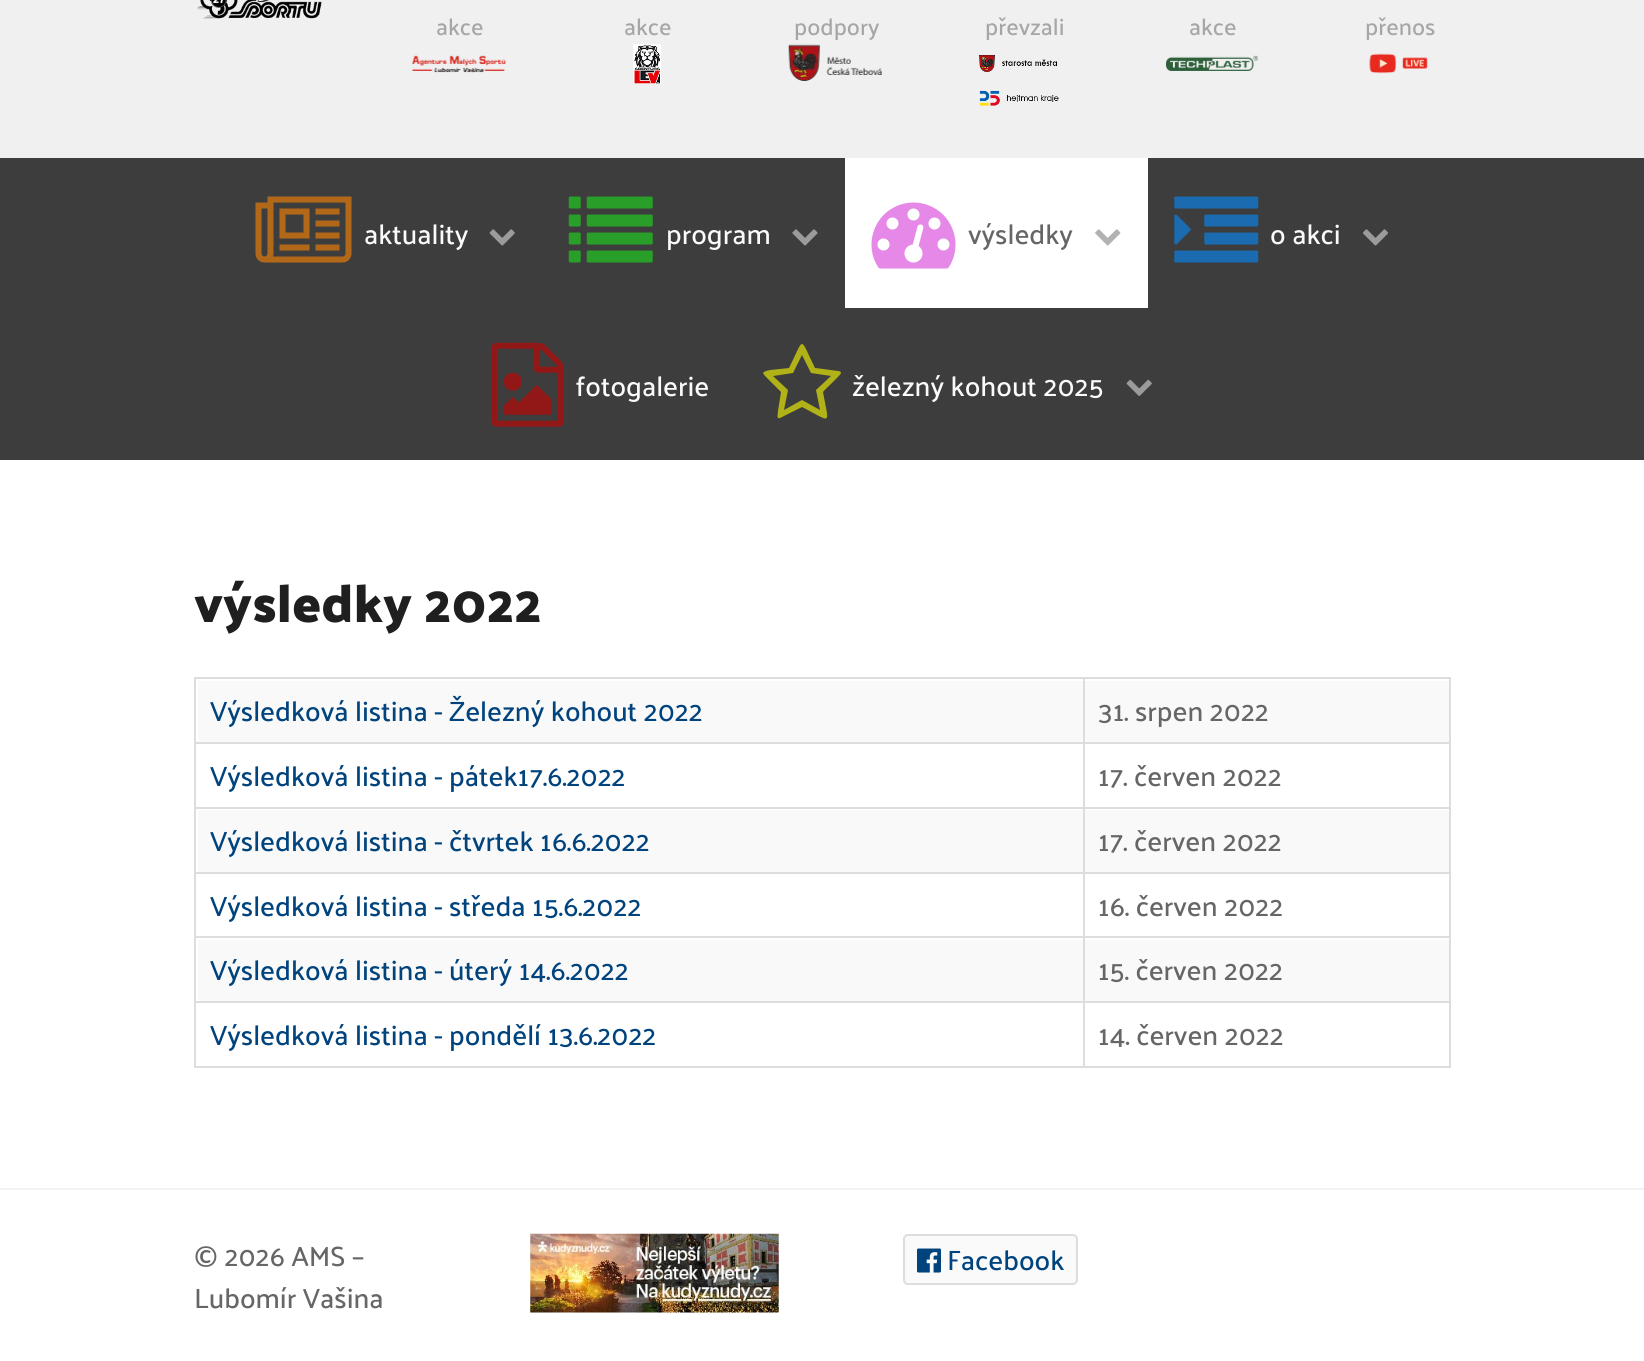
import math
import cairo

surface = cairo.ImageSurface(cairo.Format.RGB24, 1644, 1361)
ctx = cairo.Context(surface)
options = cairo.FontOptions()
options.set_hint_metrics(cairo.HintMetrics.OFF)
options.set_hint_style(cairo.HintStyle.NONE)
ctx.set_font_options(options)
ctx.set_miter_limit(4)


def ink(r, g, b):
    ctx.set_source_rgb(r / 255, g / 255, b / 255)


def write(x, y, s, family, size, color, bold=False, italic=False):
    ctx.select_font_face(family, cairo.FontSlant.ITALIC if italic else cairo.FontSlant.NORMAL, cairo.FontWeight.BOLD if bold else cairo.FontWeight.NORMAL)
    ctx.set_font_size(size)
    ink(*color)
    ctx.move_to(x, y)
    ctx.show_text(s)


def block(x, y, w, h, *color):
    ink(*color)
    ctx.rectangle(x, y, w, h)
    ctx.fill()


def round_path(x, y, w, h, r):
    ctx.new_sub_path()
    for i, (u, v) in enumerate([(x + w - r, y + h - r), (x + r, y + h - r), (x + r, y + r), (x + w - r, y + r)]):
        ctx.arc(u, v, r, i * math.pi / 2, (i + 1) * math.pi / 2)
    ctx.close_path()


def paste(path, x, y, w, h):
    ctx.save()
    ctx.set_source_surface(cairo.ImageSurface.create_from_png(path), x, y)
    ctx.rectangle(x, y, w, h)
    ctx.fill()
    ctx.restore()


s1 = dict(family="Palanquin Medium", size=23.5, color=(166, 166, 166))
s2 = dict(family="Palanquin Medium", size=28, color=(250, 250, 250))
s3 = dict(family="Palanquin Medium", size=28, color=(102, 102, 102))
s4 = dict(family="Palanquin Dark SemiBold", size=53.25, color=(31, 31, 31))
s5 = dict(family="Palanquin Medium", size=28, color=(0, 67, 125))

ink(255, 255, 255)
ctx.paint()
block(0, 0, 1644, 158, 240, 240, 240)
paste("pic1.png", 197, 0, 125, 19)
write(436, 35, "akce", **s1)
paste("pic2.png", 412, 55, 94, 18)
write(624, 35, "akce", **s1)
paste("pic3.png", 633, 44, 28, 40)
write(794, 35, "podpory", **s1)
paste("pic4.png", 788, 44, 94, 37)
write(985, 35, "převzali", **s1)
paste("pic5.png", 979, 55, 78, 17)
paste("pic6.png", 979, 90, 80, 16)
write(1189, 35, "akce", **s1)
paste("pic7.png", 1166, 55, 92, 16)
write(1365, 35, "přenos", **s1)
paste("pic8.png", 1369, 53, 59, 21)
block(0, 158, 1644, 302, 61, 61, 61)
paste("pic9.png", 255, 196, 97, 67)
write(364, 244, "aktuality", **s2)
paste("pic10.png", 489, 229, 26, 17)
paste("pic11.png", 568, 196, 85, 67)
write(666, 244, "program", **s2)
paste("pic12.png", 792, 229, 26, 17)
block(845, 158, 303, 150, 255, 255, 255)
paste("pic13.png", 871, 202, 85, 67)
write(968, 244, "výsledky", **s3)
paste("pic14.png", 1095, 229, 26, 17)
paste("pic15.png", 1174, 196, 85, 67)
write(1270, 244, "o akci", **s2)
paste("pic16.png", 1363, 229, 25, 17)
paste("pic17.png", 491, 342, 73, 85)
write(576, 396, "fotogalerie", **s2)
ink(177, 177, 24)
ctx.new_path()
ctx.move_to(816, 390)
ctx.line_to(831, 376)
ctx.line_to(811, 373)
ctx.line_to(802, 355)
ctx.line_to(793, 373)
ctx.line_to(773, 376)
ctx.line_to(788, 390)
ctx.line_to(784, 410)
ctx.line_to(802, 400)
ctx.line_to(820, 410)
ctx.close_path()
ctx.move_to(841, 373)
ctx.curve_to(841, 375, 825, 389, 823, 392)
ctx.curve_to(829, 426, 833, 423, 802, 407)
ctx.line_to(784, 416)
ctx.curve_to(777, 420, 777, 419, 778, 411)
ctx.line_to(781, 392)
ctx.line_to(767, 378)
ctx.curve_to(762, 373, 761, 372, 770, 370)
ctx.line_to(789, 368)
ctx.curve_to(805, 336, 799, 336, 815, 368)
ctx.line_to(838, 371)
ctx.curve_to(840, 371, 841, 372, 841, 373)
ctx.close_path()
ctx.fill()
write(852, 396, "železný kohout 2025", **s2)
paste("pic18.png", 1126, 379, 26, 17)
write(194, 622, "výsledky 2022", **s4)
block(194, 677, 1257, 2, 221, 221, 221)
block(1449, 677, 2, 391, 221, 221, 221)
block(194, 1066, 1257, 2, 221, 221, 221)
block(198, 681, 885, 61, 249, 249, 249)
write(210, 721, "Výsledková listina - Železný kohout 2022", **s5)
block(1085, 681, 364, 61, 249, 249, 249)
block(1083, 742, 368, 2, 221, 221, 221)
block(1083, 807, 368, 2, 221, 221, 221)
block(1083, 872, 368, 2, 221, 221, 221)
block(1083, 936, 368, 2, 221, 221, 221)
block(1083, 1001, 368, 2, 221, 221, 221)
block(1083, 1001, 2, 67, 221, 221, 221)
block(194, 1001, 891, 2, 221, 221, 221)
block(1083, 936, 2, 67, 221, 221, 221)
block(194, 936, 891, 2, 221, 221, 221)
block(1083, 872, 2, 66, 221, 221, 221)
block(194, 872, 891, 2, 221, 221, 221)
block(1083, 807, 2, 66, 221, 221, 221)
block(194, 807, 891, 2, 221, 221, 221)
block(1083, 742, 2, 67, 221, 221, 221)
block(194, 742, 891, 2, 221, 221, 221)
block(1083, 677, 2, 67, 221, 221, 221)
write(1098, 721, "31. srpen 2022", **s3)
block(194, 1001, 2, 67, 221, 221, 221)
block(194, 936, 2, 67, 221, 221, 221)
block(194, 872, 2, 66, 221, 221, 221)
block(194, 807, 2, 66, 221, 221, 221)
block(194, 677, 2, 132, 221, 221, 221)
write(210, 786, "Výsledková listina - pátek17.6.2022", **s5)
write(1098, 786, "17. červen 2022", **s3)
block(198, 810, 885, 62, 249, 249, 249)
write(210, 851, "Výsledková listina - čtvrtek 16.6.2022", **s5)
block(1085, 810, 364, 62, 249, 249, 249)
write(1098, 851, "17. červen 2022", **s3)
write(210, 916, "Výsledková listina - středa 15.6.2022", **s5)
write(1098, 916, "16. červen 2022", **s3)
block(198, 940, 885, 61, 249, 249, 249)
write(210, 980, "Výsledková listina - úterý 14.6.2022", **s5)
block(1085, 940, 364, 61, 249, 249, 249)
write(1098, 980, "15. červen 2022", **s3)
write(210, 1045, "Výsledková listina - pondělí 13.6.2022", **s5)
write(1098, 1045, "14. červen 2022", **s3)
block(0, 1188, 1644, 2, 242, 242, 242)
write(194, 1266, "© 2026 AMS –", **s3)
write(194, 1308, "Lubomír Vašina", **s3)
paste("pic19.png", 530, 1233, 249, 80)
ink(250, 250, 250)
round_path(904, 1235, 173, 49, 4)
ctx.fill_preserve()
ink(221, 221, 221)
ctx.stroke()
paste("pic20.png", 917, 1248, 24, 25)
write(947, 1270, "Facebook", **s5)
surface.write_to_png("screenshot.png")
